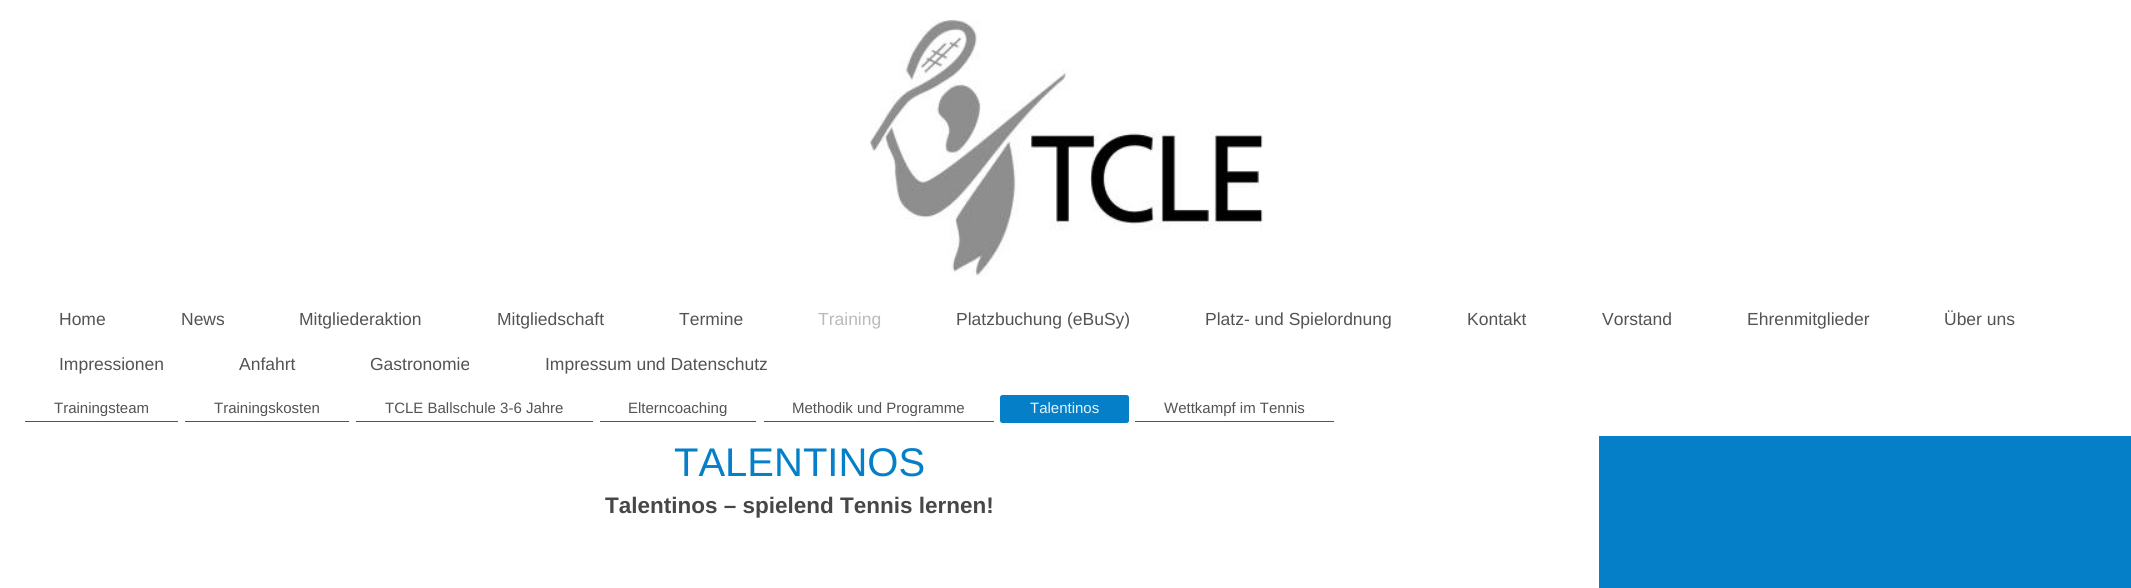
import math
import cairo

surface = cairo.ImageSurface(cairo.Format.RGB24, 2131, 588)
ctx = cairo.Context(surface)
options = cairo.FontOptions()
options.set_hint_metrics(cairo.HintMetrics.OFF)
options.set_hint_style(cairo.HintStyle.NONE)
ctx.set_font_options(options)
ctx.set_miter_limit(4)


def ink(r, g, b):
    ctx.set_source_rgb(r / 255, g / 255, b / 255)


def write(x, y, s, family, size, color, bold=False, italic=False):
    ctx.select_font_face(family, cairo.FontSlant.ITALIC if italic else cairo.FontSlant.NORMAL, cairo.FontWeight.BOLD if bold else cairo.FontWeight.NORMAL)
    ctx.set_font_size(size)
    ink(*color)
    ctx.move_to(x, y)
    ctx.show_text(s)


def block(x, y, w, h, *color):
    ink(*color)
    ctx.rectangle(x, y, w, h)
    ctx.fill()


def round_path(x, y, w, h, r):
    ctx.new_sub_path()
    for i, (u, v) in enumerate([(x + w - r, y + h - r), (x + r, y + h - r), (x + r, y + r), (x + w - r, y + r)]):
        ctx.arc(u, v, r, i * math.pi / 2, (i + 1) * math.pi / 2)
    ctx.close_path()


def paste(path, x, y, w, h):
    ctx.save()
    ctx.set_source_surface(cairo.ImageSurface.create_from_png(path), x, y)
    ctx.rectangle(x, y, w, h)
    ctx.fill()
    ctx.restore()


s1 = dict(family="Liberation Sans", size=17.5, color=(83, 83, 83))
s2 = dict(family="Liberation Sans", size=17.5, color=(186, 186, 186))
s3 = dict(family="Liberation Sans", size=15, color=(83, 83, 83))
s4 = dict(family="Liberation Sans", size=15, color=(230, 242, 250))
s5 = dict(family="Liberation Sans", size=40, color=(5, 128, 200))
s6 = dict(family="Liberation Sans", size=22.5, color=(71, 71, 71), bold=True)

ink(255, 255, 255)
ctx.paint()
paste("pic1.png", 870, 20, 393, 256)
write(59, 325, "Home", **s1)
write(181, 325, "News", **s1)
write(299, 325, "Mitgliederaktion", **s1)
write(497, 325, "Mitgliedschaft", **s1)
write(679, 325, "Termine", **s1)
write(818, 325, "Training", **s2)
write(956, 325, "Platzbuchung (eBuSy)", **s1)
write(1205, 325, "Platz- und Spielordnung", **s1)
write(1467, 325, "Kontakt", **s1)
write(1602, 325, "Vorstand", **s1)
write(1747, 325, "Ehrenmitglieder", **s1)
write(1944, 325, "Über uns", **s1)
write(59, 370, "Impressionen", **s1)
write(239, 370, "Anfahrt", **s1)
write(370, 370, "Gastronomie", **s1)
write(545, 370, "Impressum und Datenschutz", **s1)
block(25, 421, 153, 1, 83, 83, 83)
write(54, 413, "Trainingsteam", **s3)
block(185, 421, 164, 1, 83, 83, 83)
write(214, 413, "Trainingskosten", **s3)
block(356, 421, 237, 1, 83, 83, 83)
write(385, 413, "TCLE Ballschule 3-6 Jahre", **s3)
block(600, 421, 156, 1, 83, 83, 83)
write(628, 413, "Elterncoaching", **s3)
block(764, 421, 230, 1, 83, 83, 83)
write(792, 413, "Methodik und Programme", **s3)
ink(5, 128, 200)
round_path(1000, 395, 129, 28, 2.5)
ctx.fill()
write(1030, 413, "Talentinos", **s4)
block(1135, 421, 199, 1, 83, 83, 83)
write(1164, 413, "Wettkampf im Tennis", **s3)
write(674, 476, "TALENTINOS", **s5)
write(605, 513, "Talentinos – spielend Tennis lernen!", **s6)
block(1599, 436, 532, 152, 5, 128, 200)
surface.write_to_png("screenshot.png")
